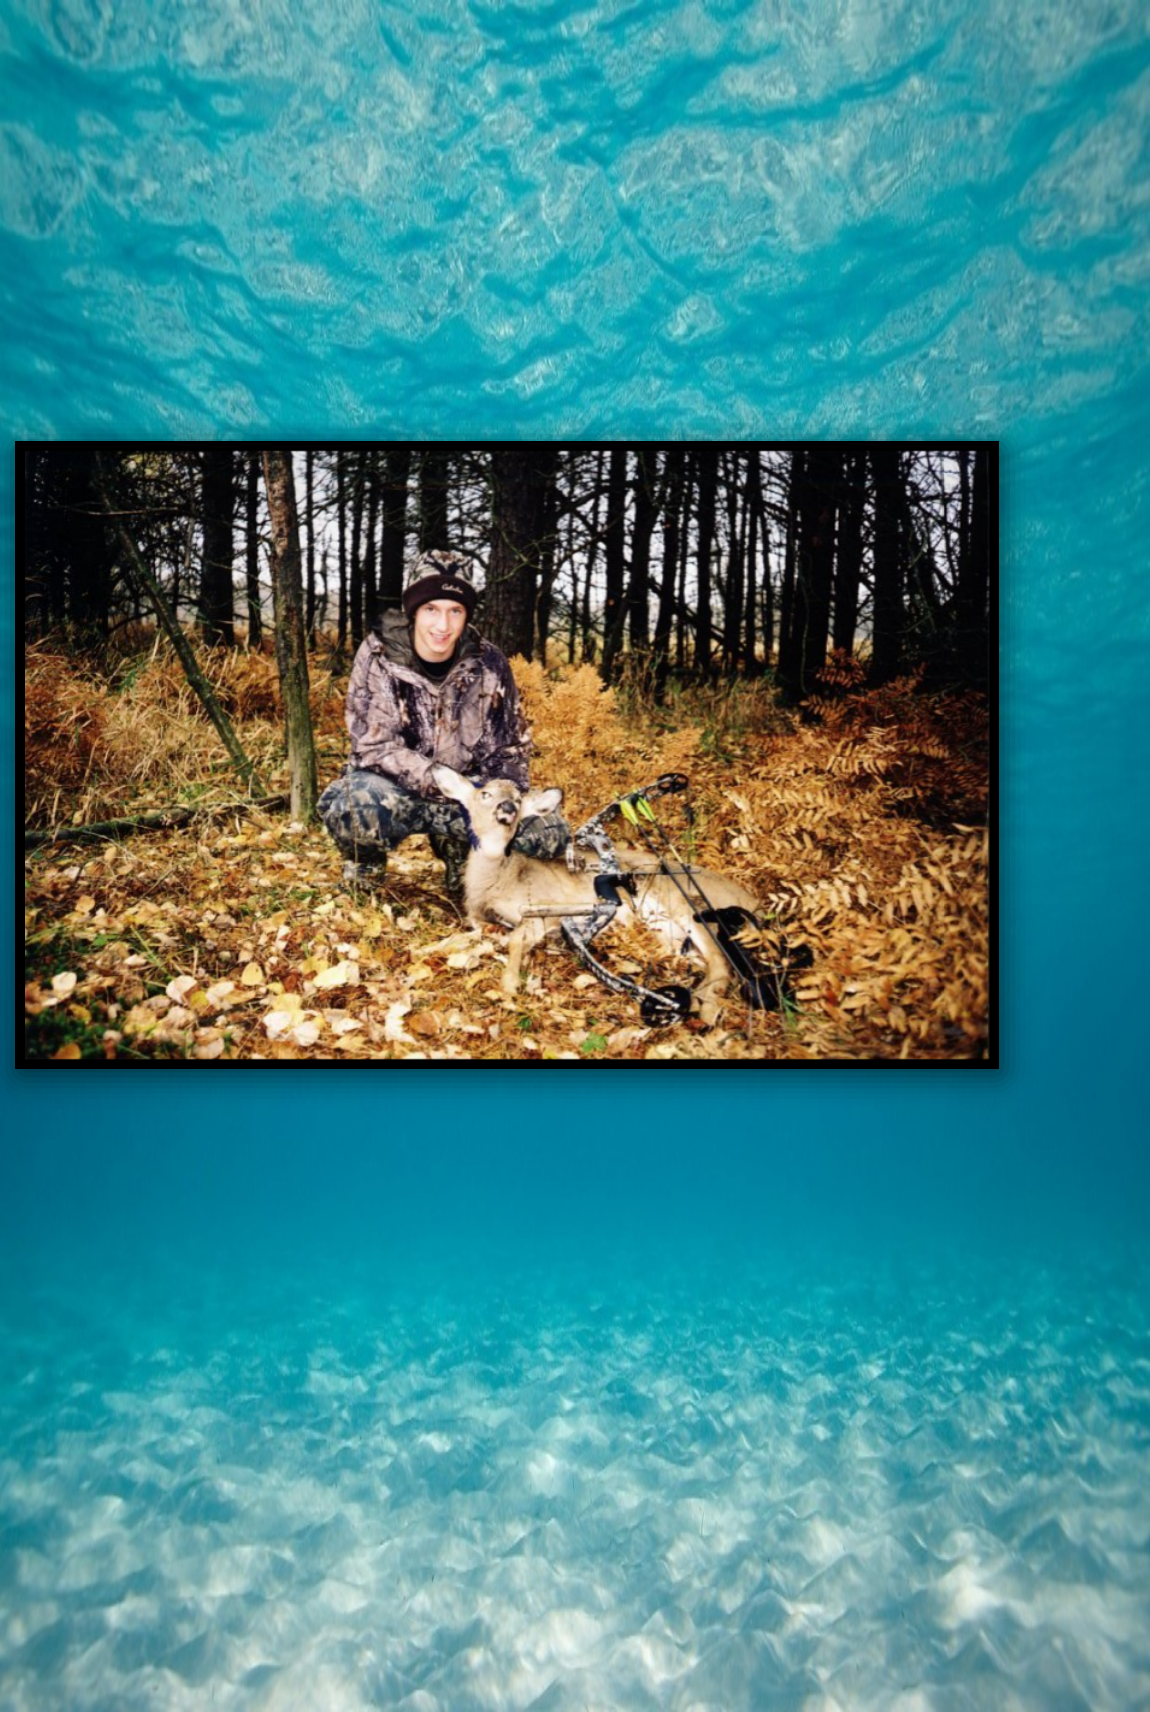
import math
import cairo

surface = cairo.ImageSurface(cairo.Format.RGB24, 1150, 1712)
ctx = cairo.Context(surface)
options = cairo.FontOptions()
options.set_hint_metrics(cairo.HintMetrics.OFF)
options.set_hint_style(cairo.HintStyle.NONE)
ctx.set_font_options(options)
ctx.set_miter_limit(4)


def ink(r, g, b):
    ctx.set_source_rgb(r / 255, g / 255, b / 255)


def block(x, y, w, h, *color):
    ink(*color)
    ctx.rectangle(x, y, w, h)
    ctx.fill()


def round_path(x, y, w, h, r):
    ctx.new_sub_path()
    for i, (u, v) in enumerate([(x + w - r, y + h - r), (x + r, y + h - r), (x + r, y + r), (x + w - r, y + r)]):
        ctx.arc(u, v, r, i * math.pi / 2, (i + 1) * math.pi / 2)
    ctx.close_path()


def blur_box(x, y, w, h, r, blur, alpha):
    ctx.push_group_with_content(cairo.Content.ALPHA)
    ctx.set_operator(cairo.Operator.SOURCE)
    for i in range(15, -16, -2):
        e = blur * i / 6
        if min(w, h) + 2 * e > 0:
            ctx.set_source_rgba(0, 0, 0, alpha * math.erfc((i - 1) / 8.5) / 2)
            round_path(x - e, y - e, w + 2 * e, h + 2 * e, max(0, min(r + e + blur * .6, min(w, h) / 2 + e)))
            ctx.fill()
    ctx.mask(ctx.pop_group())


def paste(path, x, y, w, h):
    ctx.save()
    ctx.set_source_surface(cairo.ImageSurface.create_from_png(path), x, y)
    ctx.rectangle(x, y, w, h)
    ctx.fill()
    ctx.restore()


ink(255, 255, 255)
ctx.paint()
paste("pic3.png", 0, 1711, 1150, 1)
paste("pic1.png", 0, 0, 1150, 1712)
ink(0, 0, 0)
blur_box(18, 447, 984, 628, 0, 16, 0.6)
block(15, 441, 984, 628, 0, 0, 0)
paste("pic2.png", 25, 450, 965, 610)
surface.write_to_png("screenshot.png")
